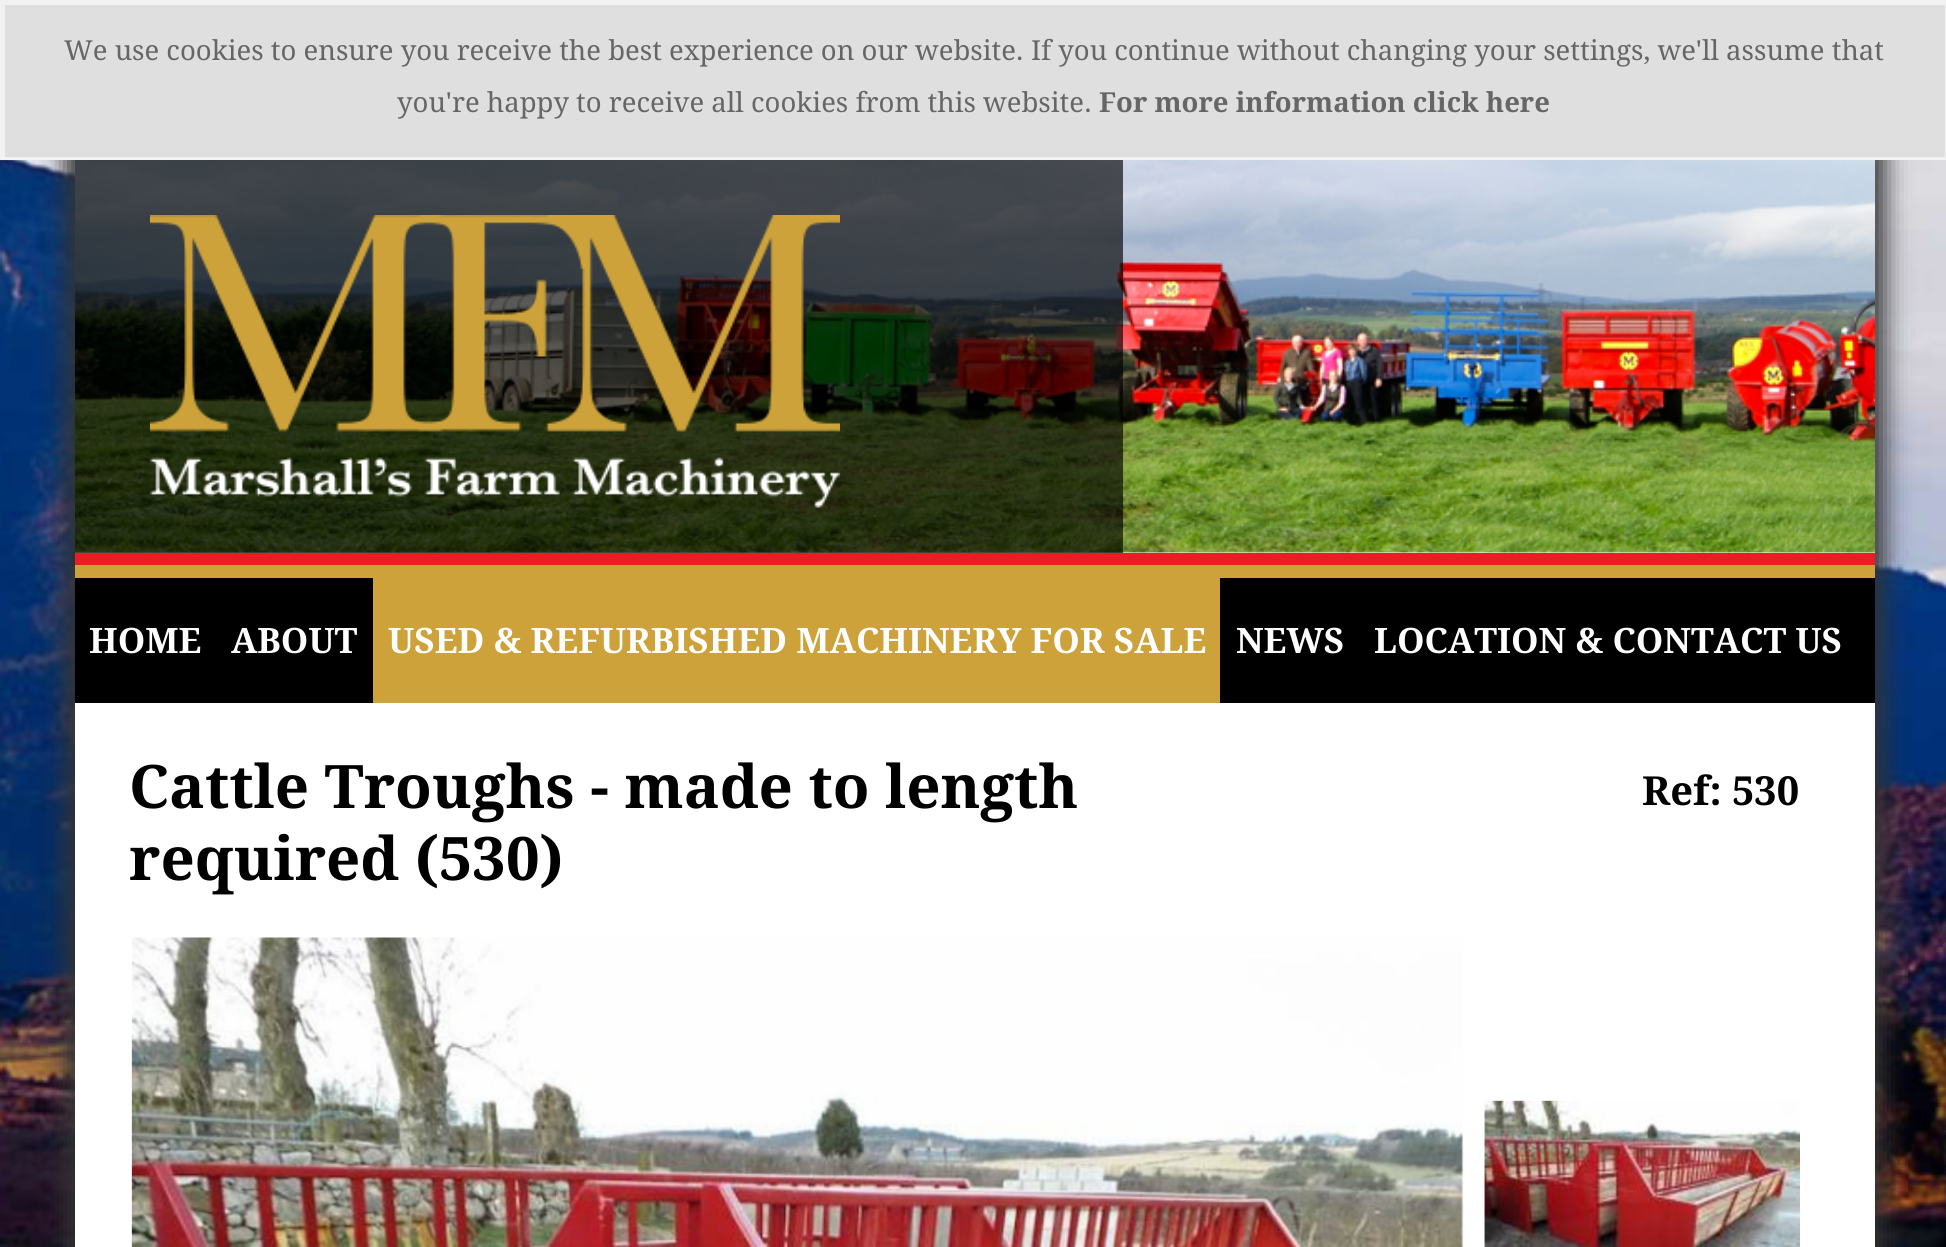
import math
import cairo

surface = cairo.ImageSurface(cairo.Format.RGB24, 1946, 1247)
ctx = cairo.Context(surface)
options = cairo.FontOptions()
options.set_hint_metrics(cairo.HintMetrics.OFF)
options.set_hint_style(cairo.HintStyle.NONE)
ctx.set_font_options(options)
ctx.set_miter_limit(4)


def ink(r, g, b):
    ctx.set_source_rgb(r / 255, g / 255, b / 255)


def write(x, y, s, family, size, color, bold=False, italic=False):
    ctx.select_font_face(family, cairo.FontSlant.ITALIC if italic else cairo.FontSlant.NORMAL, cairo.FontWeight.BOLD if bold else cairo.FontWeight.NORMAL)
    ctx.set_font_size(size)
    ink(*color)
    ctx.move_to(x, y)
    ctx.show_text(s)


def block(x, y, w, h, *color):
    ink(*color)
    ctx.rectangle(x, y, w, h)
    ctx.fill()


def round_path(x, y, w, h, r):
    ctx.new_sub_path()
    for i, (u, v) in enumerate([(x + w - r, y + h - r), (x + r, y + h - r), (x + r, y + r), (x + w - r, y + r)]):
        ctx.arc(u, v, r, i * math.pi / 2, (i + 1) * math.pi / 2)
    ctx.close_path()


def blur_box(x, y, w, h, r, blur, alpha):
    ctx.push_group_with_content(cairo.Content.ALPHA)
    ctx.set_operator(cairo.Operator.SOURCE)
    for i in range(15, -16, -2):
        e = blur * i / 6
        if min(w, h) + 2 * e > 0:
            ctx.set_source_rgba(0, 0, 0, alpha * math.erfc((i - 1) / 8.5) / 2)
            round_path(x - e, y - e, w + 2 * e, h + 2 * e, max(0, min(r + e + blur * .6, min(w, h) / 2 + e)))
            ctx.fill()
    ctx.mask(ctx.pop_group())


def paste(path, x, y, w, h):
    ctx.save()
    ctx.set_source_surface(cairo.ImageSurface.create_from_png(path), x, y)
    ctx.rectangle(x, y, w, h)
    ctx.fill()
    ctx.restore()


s1 = dict(family="Droid Serif", size=27.5, color=(102, 102, 102))
s2 = dict(family="Droid Serif", size=27.5, color=(102, 102, 102), bold=True)
s3 = dict(family="Droid Serif", size=35, color=(255, 255, 255), bold=True)
s4 = dict(family="Droid Serif", size=60, color=(0, 0, 0), bold=True)
s5 = dict(family="Droid Serif", size=40, color=(0, 0, 0), bold=True)

ink(255, 255, 255)
ctx.paint()
paste("pic1.png", 0, 160, 1946, 1087)
ink(51, 51, 51)
blur_box(65, 133, 1820, 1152, 0, 12.5, 1)
block(5, 5, 1940, 152, 223, 223, 223)
ctx.save()
ctx.rectangle(3, 3, 1942, 155)
ctx.clip()
ink(242, 242, 242)
ctx.set_fill_rule(cairo.FillRule.EVEN_ODD)
ctx.new_path()
ctx.move_to(-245, -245)
ctx.line_to(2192, -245)
ctx.line_to(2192, 405)
ctx.line_to(-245, 405)
ctx.close_path()
ctx.move_to(5, 5)
ctx.line_to(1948, 5)
ctx.line_to(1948, 160)
ctx.line_to(5, 160)
ctx.close_path()
ctx.fill()
ctx.restore()
ctx.rectangle(1.5, 1.5, 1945, 157)
ink(242, 242, 242)
ctx.set_line_width(3)
ctx.stroke()
write(64, 60, "We use cookies to ensure you receive the best experience on our website. If you continue without changing your settings, we'll assume that", **s1)
write(397, 112, "you're happy to receive all cookies from this website.", **s1)
write(1099, 112, "For more information click here", **s2)
block(75, 552, 1800, 695, 255, 255, 255)
block(75, 553, 1800, 12, 237, 28, 36)
paste("pic2.png", 75, 160, 1800, 393)
ctx.set_source_rgba(0, 0, 0, 0.65)
ctx.rectangle(75, 160, 1048, 393)
ctx.fill()
paste("pic3.png", 150, 215, 690, 293)
block(75, 578, 1800, 125, 0, 0, 0)
block(75, 565, 1800, 13, 205, 162, 59)
write(89, 653, "HOME", **s3)
write(231, 653, "ABOUT", **s3)
block(373, 578, 847, 125, 205, 162, 59)
write(388, 653, "USED & REFURBISHED MACHINERY FOR SALE", **s3)
write(1236, 653, "NEWS", **s3)
write(1374, 653, "LOCATION & CONTACT US", **s3)
write(129, 808, "Cattle Troughs - made to length", **s4)
write(129, 880, "required (530)", **s4)
write(1642, 805, "Ref: 530", **s5)
paste("pic4.png", 131, 937, 1333, 310)
paste("pic5.png", 1484, 1100, 316, 147)
surface.write_to_png("screenshot.png")
